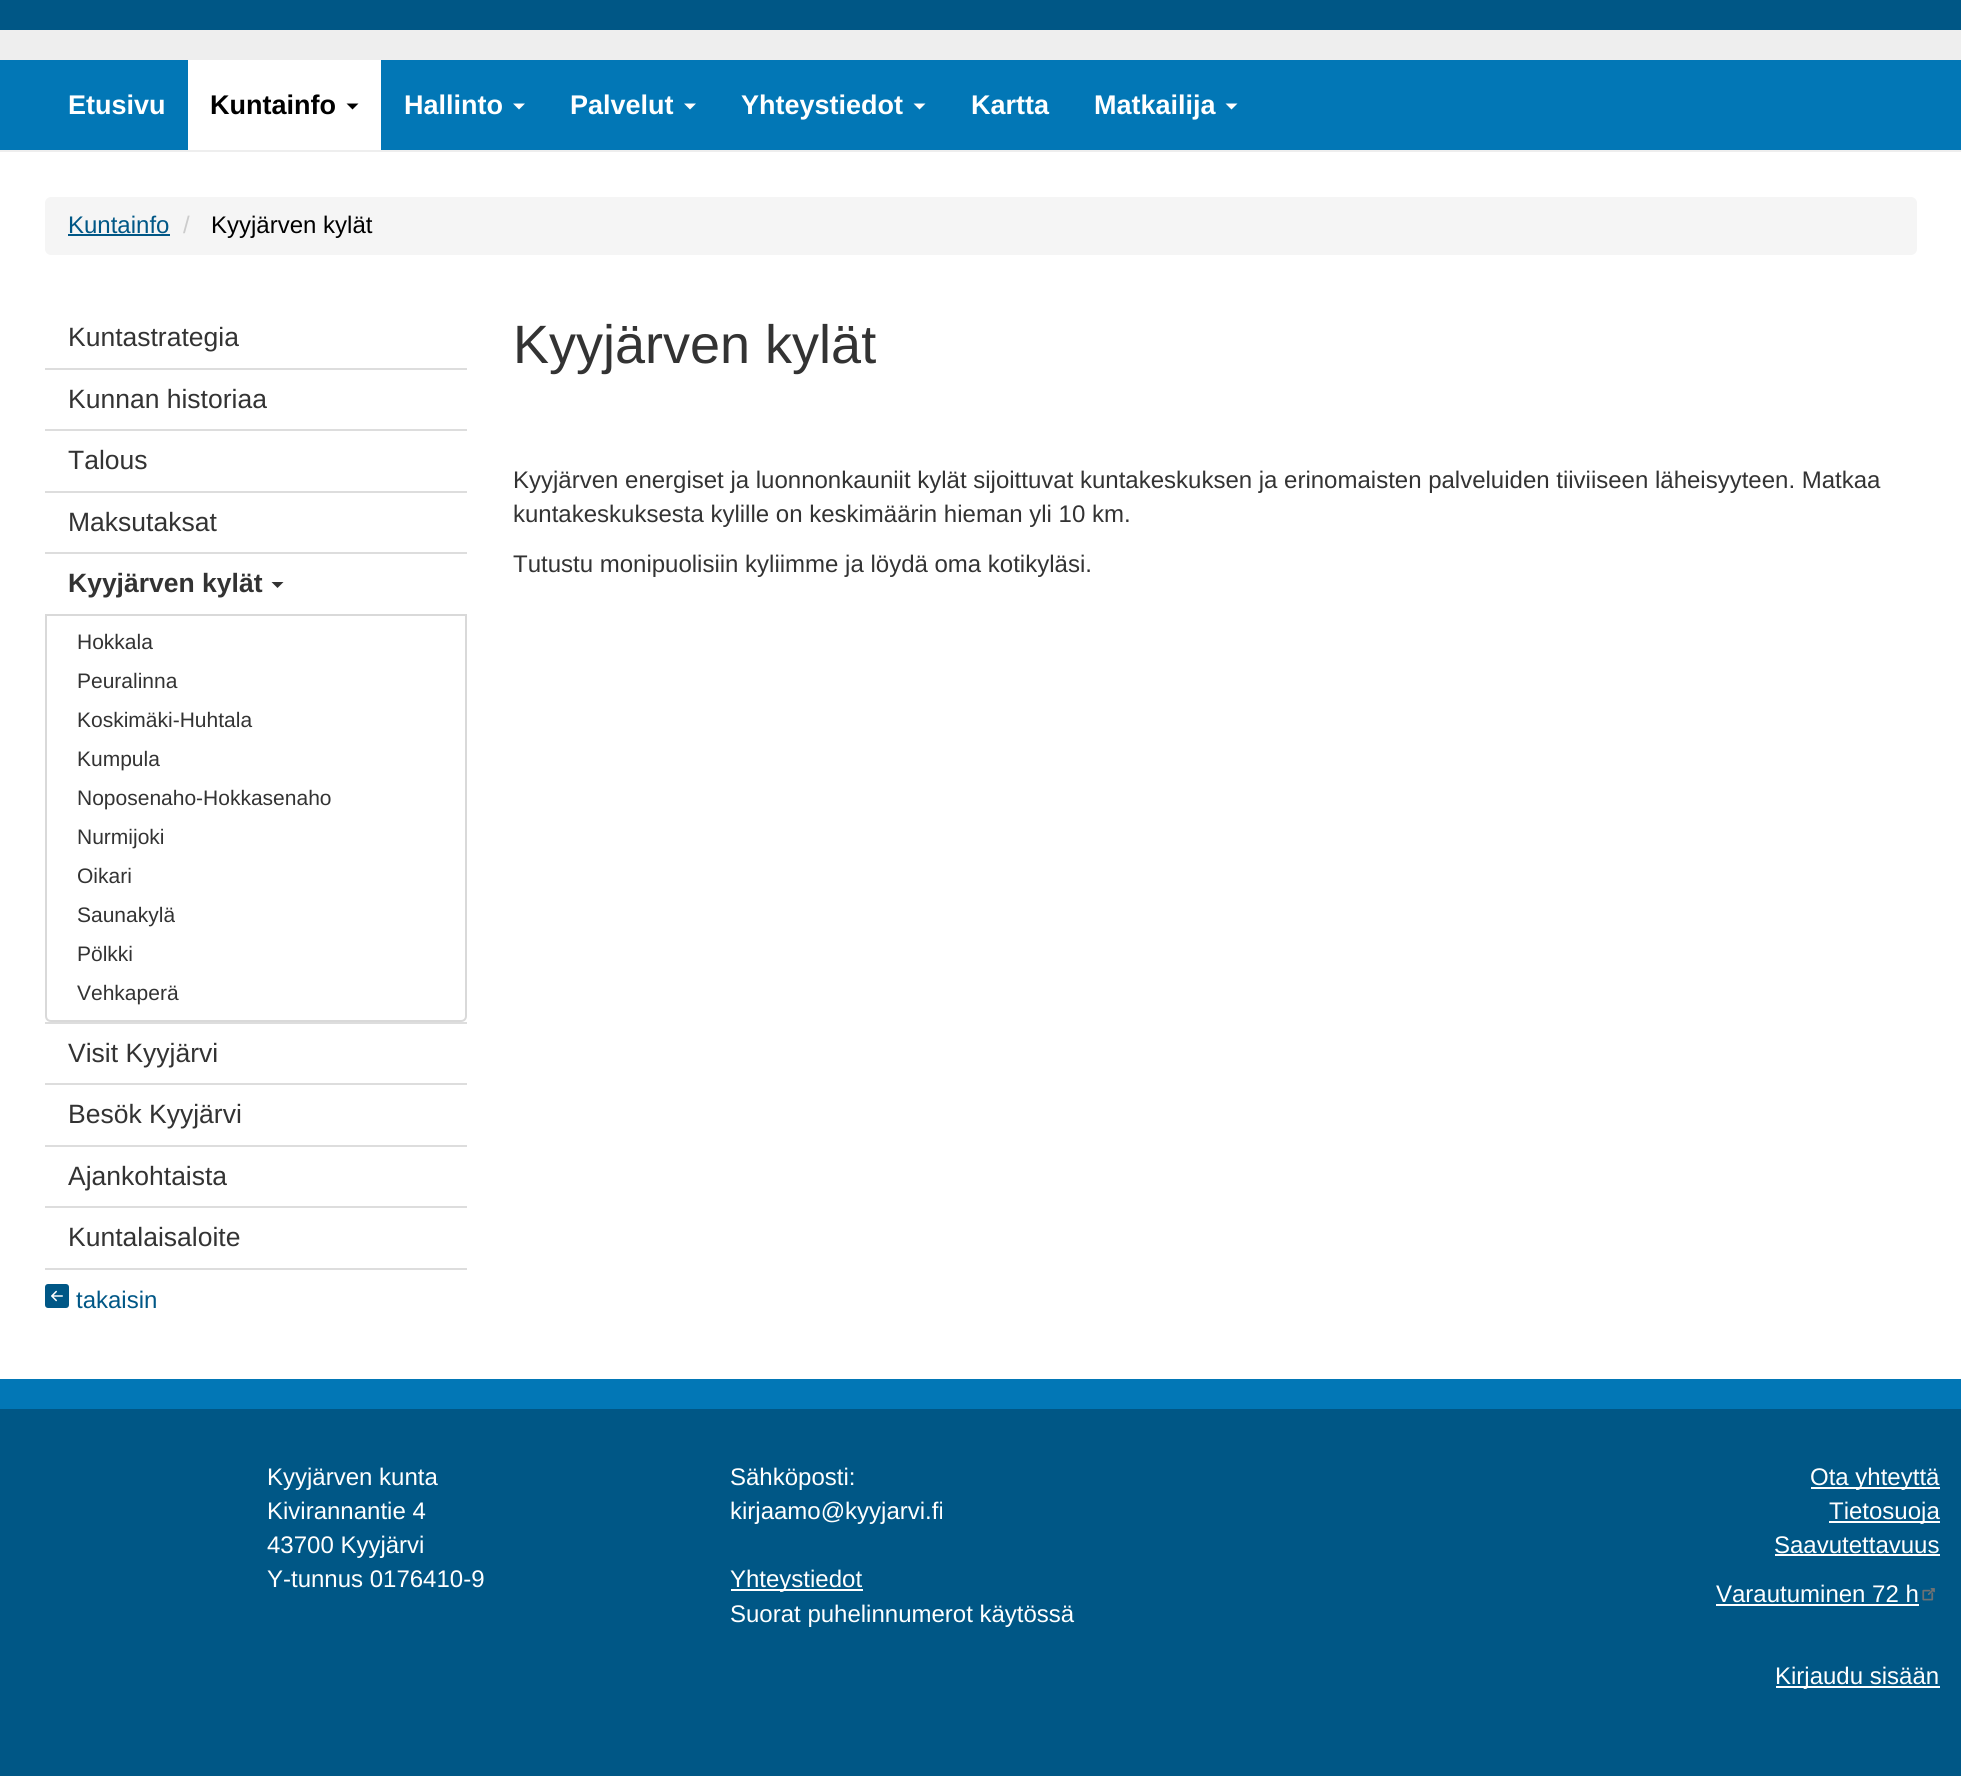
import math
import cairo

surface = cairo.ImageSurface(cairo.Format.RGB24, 1961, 1776)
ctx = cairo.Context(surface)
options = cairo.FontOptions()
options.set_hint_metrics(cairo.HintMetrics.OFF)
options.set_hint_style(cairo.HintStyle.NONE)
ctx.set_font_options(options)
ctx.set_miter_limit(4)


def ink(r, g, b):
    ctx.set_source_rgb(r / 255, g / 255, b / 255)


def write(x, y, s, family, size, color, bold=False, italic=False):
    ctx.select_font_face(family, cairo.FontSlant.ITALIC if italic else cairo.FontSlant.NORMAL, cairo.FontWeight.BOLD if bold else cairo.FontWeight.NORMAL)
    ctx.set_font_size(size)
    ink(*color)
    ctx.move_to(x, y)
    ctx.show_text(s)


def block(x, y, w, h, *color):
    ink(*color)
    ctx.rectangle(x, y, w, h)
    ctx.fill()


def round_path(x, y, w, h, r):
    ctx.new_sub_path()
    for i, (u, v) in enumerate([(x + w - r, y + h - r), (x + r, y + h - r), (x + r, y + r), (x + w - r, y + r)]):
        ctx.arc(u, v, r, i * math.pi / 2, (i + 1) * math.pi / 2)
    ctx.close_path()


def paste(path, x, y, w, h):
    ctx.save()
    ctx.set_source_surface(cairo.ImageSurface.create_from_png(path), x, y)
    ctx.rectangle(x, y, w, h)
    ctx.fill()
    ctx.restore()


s1 = dict(family="Liberation Sans", size=27, color=(255, 255, 255), bold=True)
s2 = dict(family="Liberation Sans", size=27, color=(0, 0, 0), bold=True)
s3 = dict(family="Liberation Sans", size=24, color=(0, 87, 134))
s4 = dict(family="Liberation Sans", size=24, color=(204, 204, 204))
s5 = dict(family="Liberation Sans", size=24, color=(0, 0, 0))
s6 = dict(family="Liberation Sans", size=26.5, color=(51, 51, 51))
s7 = dict(family="Liberation Sans", size=26.5, color=(51, 51, 51), bold=True)
s8 = dict(family="Liberation Sans", size=21, color=(51, 51, 51))
s9 = dict(family="Liberation Sans", size=54, color=(51, 51, 51))
s10 = dict(family="Liberation Sans", size=24, color=(51, 51, 51))
s11 = dict(family="Liberation Sans", size=24, color=(255, 255, 255))

ink(238, 238, 238)
ctx.paint()
block(0, 0, 1961, 30, 0, 87, 134)
block(0, 60, 1961, 90, 2, 119, 182)
write(68, 114, "Etusivu", **s1)
block(188, 60, 193, 90, 255, 255, 255)
write(210, 114, "Kuntainfo", **s2)
ctx.new_path()
ctx.move_to(346.5, 103.5)
ctx.line_to(358.5, 103.5)
ctx.line_to(352.5, 109.5)
ctx.close_path()
ctx.fill()
write(404, 114, "Hallinto", **s1)
ctx.new_path()
ctx.move_to(513, 103.5)
ctx.line_to(525, 103.5)
ctx.line_to(519, 109.5)
ctx.close_path()
ctx.fill()
write(570, 114, "Palvelut", **s1)
ctx.new_path()
ctx.move_to(684, 103.5)
ctx.line_to(696, 103.5)
ctx.line_to(690, 109.5)
ctx.close_path()
ctx.fill()
write(741, 114, "Yhteystiedot", **s1)
ctx.new_path()
ctx.move_to(913.5, 103.5)
ctx.line_to(925.5, 103.5)
ctx.line_to(919.5, 109.5)
ctx.close_path()
ctx.fill()
write(971, 114, "Kartta", **s1)
write(1094, 114, "Matkailija", **s1)
ctx.new_path()
ctx.move_to(1225.5, 103.5)
ctx.line_to(1237.5, 103.5)
ctx.line_to(1231.5, 109.5)
ctx.close_path()
ctx.fill()
block(0, 152, 1961, 1227, 255, 255, 255)
ink(245, 245, 245)
round_path(45, 197, 1872, 58, 6)
ctx.fill()
write(68, 233, "Kuntainfo", **s3)
block(68, 234, 102, 2, 0, 87, 134)
write(183, 233, "/", **s4)
write(211, 233, "Kyyjärven kylät", **s5)
block(45, 368, 422, 2, 221, 221, 221)
write(68, 346, "Kuntastrategia", **s6)
block(45, 429, 422, 2, 221, 221, 221)
write(68, 408, "Kunnan historiaa", **s6)
block(45, 491, 422, 2, 221, 221, 221)
write(68, 469, "Talous", **s6)
block(45, 552, 422, 2, 221, 221, 221)
write(68, 531, "Maksutaksat", **s6)
block(45, 1022, 422, 2, 221, 221, 221)
write(68, 592, "Kyyjärven kylät", **s7)
ctx.new_path()
ctx.move_to(271.5, 582)
ctx.line_to(283.5, 582)
ctx.line_to(277.5, 588)
ctx.close_path()
ctx.fill()
ctx.new_path()
ctx.move_to(46, 615)
ctx.line_to(466, 615)
ctx.line_to(466, 1016)
ctx.curve_to(466, 1019, 464, 1021, 461, 1021)
ctx.line_to(51, 1021)
ctx.curve_to(48, 1021, 46, 1019, 46, 1016)
ctx.close_path()
ink(217, 217, 217)
ctx.stroke()
write(77, 649, "Hokkala", **s8)
write(77, 688, "Peuralinna", **s8)
write(77, 727, "Koskimäki-Huhtala", **s8)
write(77, 766, "Kumpula", **s8)
write(77, 805, "Noposenaho-Hokkasenaho", **s8)
write(77, 844, "Nurmijoki", **s8)
write(77, 883, "Oikari", **s8)
write(77, 922, "Saunakylä", **s8)
write(77, 961, "Pölkki", **s8)
write(77, 1000, "Vehkaperä", **s8)
block(45, 1083, 422, 2, 221, 221, 221)
write(68, 1062, "Visit Kyyjärvi", **s6)
block(45, 1145, 422, 2, 221, 221, 221)
write(68, 1123, "Besök Kyyjärvi", **s6)
block(45, 1206, 422, 2, 221, 221, 221)
write(68, 1185, "Ajankohtaista", **s6)
block(45, 1268, 422, 2, 221, 221, 221)
write(68, 1246, "Kuntalaisaloite", **s6)
write(513, 363, "Kyyjärven kylät", **s9)
write(513, 488, "Kyyjärven energiset ja luonnonkauniit kylät sijoittuvat kuntakeskuksen ja erinomaisten palveluiden tiiviiseen läheisyyteen. Matkaa", **s10)
write(513, 522, "kuntakeskuksesta kylille on keskimäärin hieman yli 10 km.", **s10)
write(513, 572, "Tutustu monipuolisiin kyliimme ja löydä oma kotikyläsi.", **s10)
paste("pic1.png", 45, 1284, 24, 24)
write(76, 1308, "takaisin", **s3)
block(0, 1409, 1961, 367, 0, 87, 134)
block(0, 1379, 1961, 30, 2, 119, 182)
write(267, 1485, "Kyyjärven kunta", **s11)
write(267, 1519, "Kivirannantie 4", **s11)
write(267, 1553, "43700 Kyyjärvi", **s11)
write(267, 1587, "Y-tunnus 0176410-9", **s11)
write(730, 1485, "Sähköposti:", **s11)
write(730, 1519, "kirjaamo@kyyjarvi.fi", **s11)
block(731, 1589, 132, 2, 255, 255, 255)
write(730, 1587, "Yhteystiedot", **s11)
write(730, 1622, "Suorat puhelinnumerot käytössä", **s11)
block(1811, 1487, 129, 2, 255, 255, 255)
write(1810, 1485, "Ota yhteyttä", **s11)
block(1829, 1521, 111, 2, 255, 255, 255)
write(1829, 1519, "Tietosuoja", **s11)
write(1774, 1553, "Saavutettavuus", **s11)
block(1775, 1554, 165, 2, 255, 255, 255)
write(1716, 1602, "Varautuminen 72 h", **s11)
block(1716, 1604, 203, 2, 255, 255, 255)
paste("pic2.png", 1922, 1588, 13, 13)
block(1776, 1686, 164, 2, 255, 255, 255)
write(1775, 1684, "Kirjaudu sisään", **s11)
surface.write_to_png("screenshot.png")
